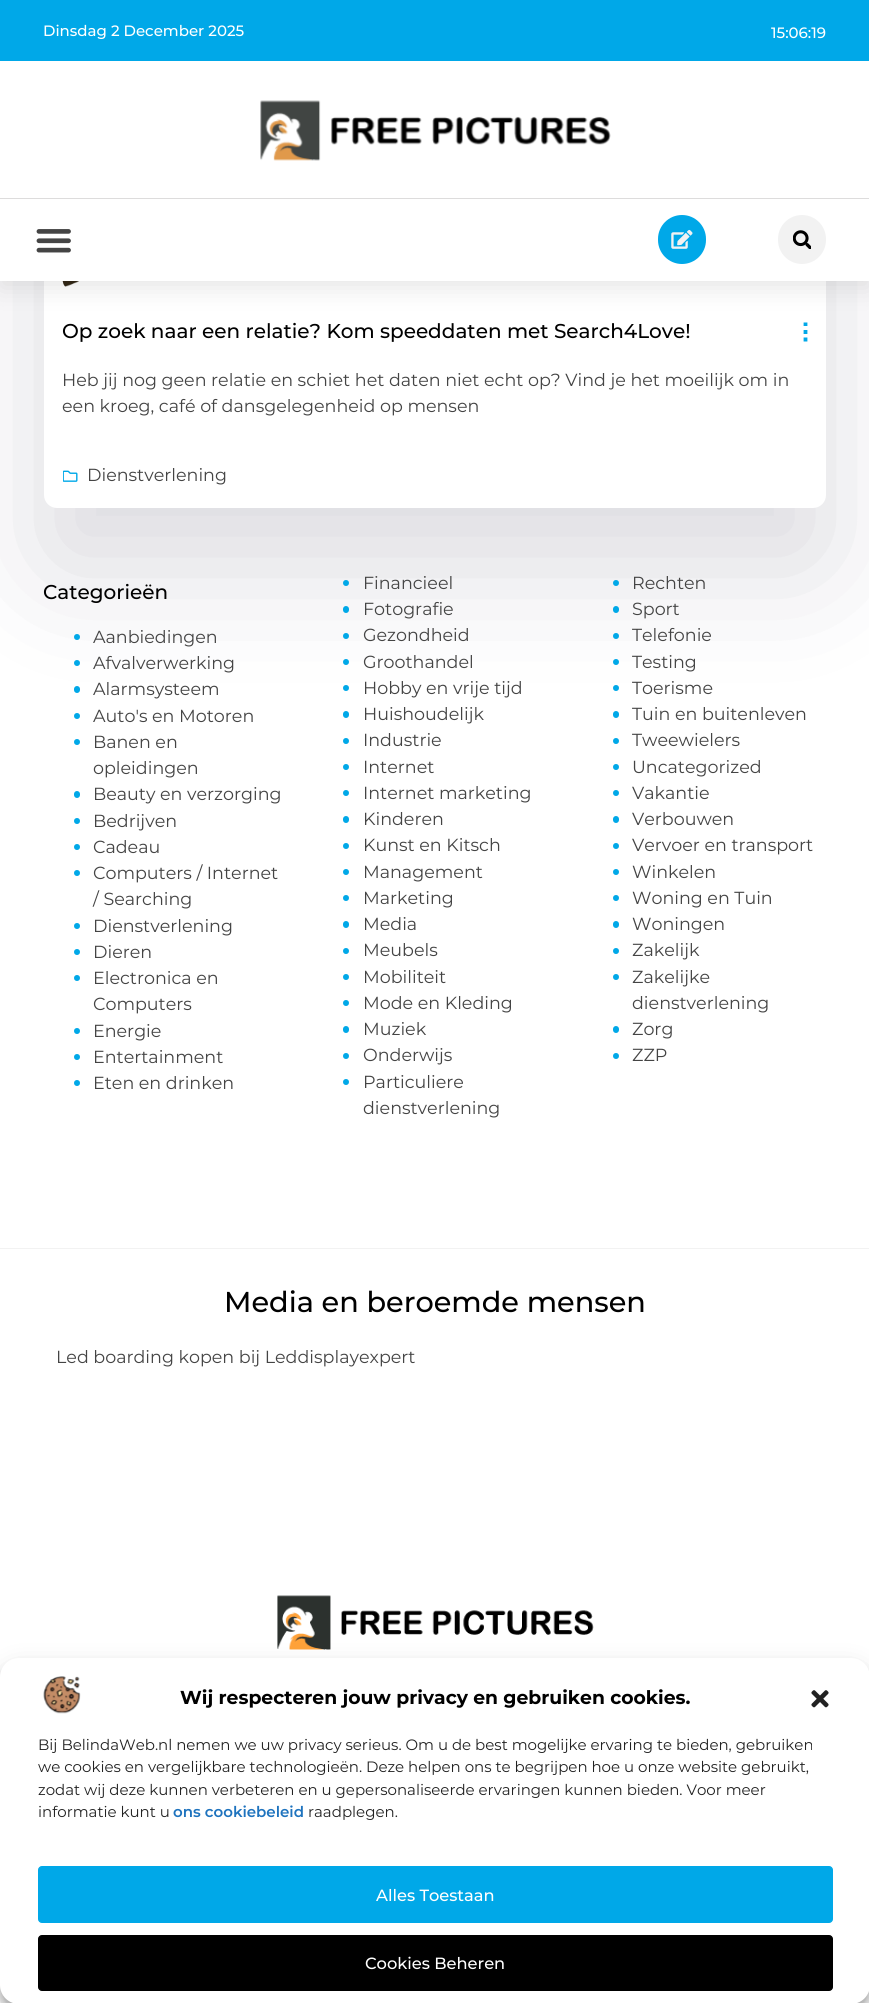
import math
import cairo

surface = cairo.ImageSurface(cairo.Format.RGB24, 869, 2003)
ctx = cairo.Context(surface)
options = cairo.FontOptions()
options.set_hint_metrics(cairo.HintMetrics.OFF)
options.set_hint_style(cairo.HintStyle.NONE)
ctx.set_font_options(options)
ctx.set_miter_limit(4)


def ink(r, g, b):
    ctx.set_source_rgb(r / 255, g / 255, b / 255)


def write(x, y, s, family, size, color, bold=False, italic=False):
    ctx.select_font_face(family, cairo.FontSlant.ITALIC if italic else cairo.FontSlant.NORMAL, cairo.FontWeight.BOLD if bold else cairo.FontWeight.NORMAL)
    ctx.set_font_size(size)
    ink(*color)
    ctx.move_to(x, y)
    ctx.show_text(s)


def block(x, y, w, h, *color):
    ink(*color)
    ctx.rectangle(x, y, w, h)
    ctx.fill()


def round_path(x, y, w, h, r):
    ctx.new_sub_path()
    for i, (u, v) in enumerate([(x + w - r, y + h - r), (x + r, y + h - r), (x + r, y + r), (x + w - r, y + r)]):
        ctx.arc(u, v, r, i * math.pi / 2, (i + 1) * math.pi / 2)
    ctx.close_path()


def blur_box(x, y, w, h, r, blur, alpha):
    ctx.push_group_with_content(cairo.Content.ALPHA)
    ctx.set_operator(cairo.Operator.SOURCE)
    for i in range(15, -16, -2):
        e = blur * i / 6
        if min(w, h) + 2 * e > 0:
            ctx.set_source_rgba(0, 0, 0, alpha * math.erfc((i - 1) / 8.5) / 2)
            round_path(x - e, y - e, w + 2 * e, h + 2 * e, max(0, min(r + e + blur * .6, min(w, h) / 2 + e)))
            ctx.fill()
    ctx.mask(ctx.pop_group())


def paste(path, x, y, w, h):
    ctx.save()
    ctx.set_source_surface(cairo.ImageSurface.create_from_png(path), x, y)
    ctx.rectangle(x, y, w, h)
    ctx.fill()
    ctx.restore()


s1 = dict(family="Montserrat Medium", size=15, color=(255, 255, 255))
s2 = dict(family="Montserrat Medium", size=20, color=(0, 0, 0))
s3 = dict(family="Montserrat", size=17.5, color=(68, 68, 68))
s4 = dict(family="Montserrat Medium", size=28.75, color=(0, 0, 0))
s5 = dict(family="Montserrat", size=18.75, color=(0, 0, 0), bold=True)
s6 = dict(family="Montserrat", size=15, color=(34, 34, 34))
s7 = dict(family="Montserrat SemiBold", size=15, color=(30, 115, 190))
s8 = dict(family="Montserrat Medium", size=16.25, color=(255, 255, 255))

ink(255, 255, 255)
ctx.paint()
ink(17, 12, 46)
blur_box(44, 145, 782, 423, 13, 62.5, 0.15)
ink(255, 255, 255)
round_path(44, 85, 782, 423, 13)
ctx.fill()
paste("pic5.png", 62, 281, 17, 6)
ctx.new_path()
ctx.move_to(805.5, 322.5)
ctx.line_to(805.5, 326)
ctx.move_to(805.5, 330)
ctx.line_to(805.5, 334)
ctx.move_to(805.5, 337.5)
ctx.line_to(805.5, 341.5)
ink(0, 168, 232)
ctx.set_line_width(3.8)
ctx.stroke()
ink(0, 0, 0)
blur_box(0, 6, 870, 282, 0, 12.5, 0.1)
block(0, 0, 869, 61, 0, 168, 232)
write(43, 36, "Dinsdag 2 December 2025", **s1)
write(771, 38, "15:06:19", **s1)
block(0, 61, 869, 137, 255, 255, 255)
block(0, 198, 869, 1, 221, 220, 220)
paste("pic1.png", 260, 100, 351, 61)
block(0, 199, 869, 82, 255, 255, 255)
paste("pic2.png", 36, 229, 35, 24)
ink(0, 168, 232)
round_path(658, 215, 48, 49, 24)
ctx.fill()
paste("pic3.png", 671, 229, 22, 20)
ink(242, 242, 242)
round_path(778, 215, 48, 49, 24)
ctx.fill()
paste("pic4.png", 793, 230, 18, 19)
write(62, 338, "Op zoek naar een relatie? Kom speeddaten met Search4Love!", **s2)
write(62, 386, "Heb jij nog geen relatie en schiet het daten niet echt op? Vind je het moeilijk om in", **s3)
write(62, 412, "een kroeg, café of dansgelegenheid op mensen", **s3)
paste("pic6.png", 63, 470, 15, 12)
write(87, 481, "Dienstverlening", **s3)
ink(0, 168, 232)
ctx.new_path()
ctx.arc(346, 583, 3, 0, 2 * math.pi)
ctx.fill()
write(363, 589, "Financieel", **s3)
ink(0, 168, 232)
ctx.new_path()
ctx.arc(616, 583, 3, 0, 2 * math.pi)
ctx.fill()
write(632, 589, "Rechten", **s3)
ink(0, 168, 232)
round_path(343, 606, 6, 7, 3)
ctx.fill()
write(363, 615, "Fotografie", **s3)
ink(0, 168, 232)
round_path(613, 606, 6, 7, 3)
ctx.fill()
write(632, 615, "Sport", **s3)
ink(0, 168, 232)
ctx.new_path()
ctx.arc(77, 637, 3, 0, 2 * math.pi)
ctx.fill()
write(93, 643, "Aanbiedingen", **s3)
ink(0, 168, 232)
ctx.new_path()
ctx.arc(346, 636, 3, 0, 2 * math.pi)
ctx.fill()
write(363, 641, "Gezondheid", **s3)
ink(0, 168, 232)
ctx.new_path()
ctx.arc(616, 636, 3, 0, 2 * math.pi)
ctx.fill()
write(632, 641, "Telefonie", **s3)
ink(0, 168, 232)
ctx.new_path()
ctx.arc(77, 663, 3, 0, 2 * math.pi)
ctx.fill()
write(93, 669, "Afvalverwerking", **s3)
ink(0, 168, 232)
ctx.new_path()
ctx.arc(346, 662, 3, 0, 2 * math.pi)
ctx.fill()
write(363, 668, "Groothandel", **s3)
ink(0, 168, 232)
ctx.new_path()
ctx.arc(616, 662, 3, 0, 2 * math.pi)
ctx.fill()
write(632, 668, "Testing", **s3)
ink(0, 168, 232)
round_path(74, 686, 6, 7, 3)
ctx.fill()
write(93, 695, "Alarmsysteem", **s3)
ink(0, 168, 232)
ctx.new_path()
ctx.arc(346, 688, 3, 0, 2 * math.pi)
ctx.fill()
write(363, 694, "Hobby en vrije tijd", **s3)
ink(0, 168, 232)
ctx.new_path()
ctx.arc(616, 688, 3, 0, 2 * math.pi)
ctx.fill()
write(632, 694, "Toerisme", **s3)
ink(0, 168, 232)
ctx.new_path()
ctx.arc(77, 716, 3, 0, 2 * math.pi)
ctx.fill()
write(93, 722, "Auto's en Motoren", **s3)
ink(0, 168, 232)
round_path(343, 711, 6, 7, 3)
ctx.fill()
write(363, 720, "Huishoudelijk", **s3)
ink(0, 168, 232)
round_path(613, 711, 6, 7, 3)
ctx.fill()
write(632, 720, "Tuin en buitenleven", **s3)
ink(0, 168, 232)
ctx.new_path()
ctx.arc(77, 742, 3, 0, 2 * math.pi)
ctx.fill()
write(93, 748, "Banen en", **s3)
write(93, 774, "opleidingen", **s3)
ink(0, 168, 232)
ctx.new_path()
ctx.arc(346, 741, 3, 0, 2 * math.pi)
ctx.fill()
write(363, 746, "Industrie", **s3)
ink(0, 168, 232)
ctx.new_path()
ctx.arc(616, 741, 3, 0, 2 * math.pi)
ctx.fill()
write(632, 746, "Tweewielers", **s3)
ink(0, 168, 232)
ctx.new_path()
ctx.arc(346, 767, 3, 0, 2 * math.pi)
ctx.fill()
write(363, 773, "Internet", **s3)
ink(0, 168, 232)
ctx.new_path()
ctx.arc(616, 767, 3, 0, 2 * math.pi)
ctx.fill()
write(632, 773, "Uncategorized", **s3)
ink(0, 168, 232)
round_path(74, 791, 6, 7, 3)
ctx.fill()
write(93, 800, "Beauty en verzorging", **s3)
ink(0, 168, 232)
ctx.new_path()
ctx.arc(346, 793, 3, 0, 2 * math.pi)
ctx.fill()
write(363, 799, "Internet marketing", **s3)
ink(0, 168, 232)
ctx.new_path()
ctx.arc(616, 793, 3, 0, 2 * math.pi)
ctx.fill()
write(632, 799, "Vakantie", **s3)
ink(0, 168, 232)
ctx.new_path()
ctx.arc(77, 821, 3, 0, 2 * math.pi)
ctx.fill()
write(93, 827, "Bedrijven", **s3)
ink(0, 168, 232)
round_path(343, 816, 6, 7, 3)
ctx.fill()
write(363, 825, "Kinderen", **s3)
ink(0, 168, 232)
round_path(613, 816, 6, 7, 3)
ctx.fill()
write(632, 825, "Verbouwen", **s3)
ink(0, 168, 232)
ctx.new_path()
ctx.arc(77, 847, 3, 0, 2 * math.pi)
ctx.fill()
write(93, 853, "Cadeau", **s3)
ink(0, 168, 232)
ctx.new_path()
ctx.arc(346, 846, 3, 0, 2 * math.pi)
ctx.fill()
write(363, 851, "Kunst en Kitsch", **s3)
ink(0, 168, 232)
ctx.new_path()
ctx.arc(616, 846, 3, 0, 2 * math.pi)
ctx.fill()
write(632, 851, "Vervoer en transport", **s3)
ink(0, 168, 232)
ctx.new_path()
ctx.arc(77, 873, 3, 0, 2 * math.pi)
ctx.fill()
write(93, 879, "Computers / Internet", **s3)
write(93, 905, "/ Searching", **s3)
ink(0, 168, 232)
ctx.new_path()
ctx.arc(346, 872, 3, 0, 2 * math.pi)
ctx.fill()
write(363, 878, "Management", **s3)
ink(0, 168, 232)
ctx.new_path()
ctx.arc(616, 872, 3, 0, 2 * math.pi)
ctx.fill()
write(632, 878, "Winkelen", **s3)
ink(0, 168, 232)
ctx.new_path()
ctx.arc(346, 898, 3, 0, 2 * math.pi)
ctx.fill()
write(363, 904, "Marketing", **s3)
ink(0, 168, 232)
ctx.new_path()
ctx.arc(616, 898, 3, 0, 2 * math.pi)
ctx.fill()
write(632, 904, "Woning en Tuin", **s3)
ink(0, 168, 232)
ctx.new_path()
ctx.arc(77, 926, 3, 0, 2 * math.pi)
ctx.fill()
write(93, 932, "Dienstverlening", **s3)
ink(0, 168, 232)
round_path(343, 921, 6, 7, 3)
ctx.fill()
write(363, 930, "Media", **s3)
ink(0, 168, 232)
round_path(613, 921, 6, 7, 3)
ctx.fill()
write(632, 930, "Woningen", **s3)
ink(0, 168, 232)
ctx.new_path()
ctx.arc(77, 952, 3, 0, 2 * math.pi)
ctx.fill()
write(93, 958, "Dieren", **s3)
ink(0, 168, 232)
ctx.new_path()
ctx.arc(346, 951, 3, 0, 2 * math.pi)
ctx.fill()
write(363, 956, "Meubels", **s3)
ink(0, 168, 232)
ctx.new_path()
ctx.arc(616, 951, 3, 0, 2 * math.pi)
ctx.fill()
write(632, 956, "Zakelijk", **s3)
ink(0, 168, 232)
ctx.new_path()
ctx.arc(77, 978, 3, 0, 2 * math.pi)
ctx.fill()
write(93, 984, "Electronica en", **s3)
write(93, 1010, "Computers", **s3)
ink(0, 168, 232)
ctx.new_path()
ctx.arc(346, 977, 3, 0, 2 * math.pi)
ctx.fill()
write(363, 983, "Mobiliteit", **s3)
ink(0, 168, 232)
ctx.new_path()
ctx.arc(616, 977, 3, 0, 2 * math.pi)
ctx.fill()
write(632, 983, "Zakelijke", **s3)
write(632, 1009, "dienstverlening", **s3)
ink(0, 168, 232)
ctx.new_path()
ctx.arc(346, 1003, 3, 0, 2 * math.pi)
ctx.fill()
write(363, 1009, "Mode en Kleding", **s3)
ink(0, 168, 232)
ctx.new_path()
ctx.arc(77, 1031, 3, 0, 2 * math.pi)
ctx.fill()
write(93, 1037, "Energie", **s3)
ink(0, 168, 232)
round_path(343, 1026, 6, 7, 3)
ctx.fill()
write(363, 1035, "Muziek", **s3)
ink(0, 168, 232)
round_path(613, 1026, 6, 7, 3)
ctx.fill()
write(632, 1035, "Zorg", **s3)
ink(0, 168, 232)
ctx.new_path()
ctx.arc(77, 1057, 3, 0, 2 * math.pi)
ctx.fill()
write(93, 1063, "Entertainment", **s3)
ink(0, 168, 232)
ctx.new_path()
ctx.arc(346, 1056, 3, 0, 2 * math.pi)
ctx.fill()
write(363, 1061, "Onderwijs", **s3)
ink(0, 168, 232)
ctx.new_path()
ctx.arc(616, 1056, 3, 0, 2 * math.pi)
ctx.fill()
write(632, 1061, "ZZP", **s3)
ink(0, 168, 232)
ctx.new_path()
ctx.arc(77, 1083, 3, 0, 2 * math.pi)
ctx.fill()
write(93, 1089, "Eten en drinken", **s3)
ink(0, 168, 232)
ctx.new_path()
ctx.arc(346, 1082, 3, 0, 2 * math.pi)
ctx.fill()
write(363, 1088, "Particuliere", **s3)
write(363, 1114, "dienstverlening", **s3)
write(43, 599, "Categorieën", **s2)
block(0, 1248, 869, 1, 242, 242, 242)
write(224, 1312, "Media en beroemde mensen", **s4)
write(56, 1363, "Led boarding kopen bij Leddisplayexpert", **s3)
paste("pic7.png", 277, 1595, 317, 55)
ink(0, 0, 0)
blur_box(0, 1665, 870, 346, 19, 4, 0.23)
blur_box(0, 1670, 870, 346, 19, 12.5, 0.19)
ink(255, 255, 255)
round_path(0, 1658, 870, 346, 19)
ctx.fill()
paste("pic8.png", 43, 1676, 38, 38)
write(180, 1704, "Wij respecteren jouw privacy en gebruiken cookies.", **s5)
paste("pic9.png", 811, 1690, 18, 18)
write(38, 1750, "Bij BelindaWeb.nl nemen we uw privacy serieus. Om u de best mogelijke ervaring te bieden, gebruiken", **s6)
write(38, 1772, "we cookies en vergelijkbare technologieën. Deze helpen ons te begrijpen hoe u onze website gebruikt,", **s6)
write(38, 1795, "zodat wij deze kunnen verbeteren en u gepersonaliseerde ervaringen kunnen bieden. Voor meer", **s6)
write(38, 1817, "informatie kunt u", **s6)
write(173, 1817, "ons cookiebeleid", **s7)
write(308, 1817, "raadplegen.", **s6)
ink(0, 168, 232)
round_path(38.5, 1866.5, 794, 56, 3.5)
ctx.fill_preserve()
ctx.set_line_width(1)
ctx.stroke()
write(376, 1901, "Alles Toestaan", **s8)
ink(0, 0, 0)
round_path(38.5, 1935.5, 794, 55, 3.5)
ctx.fill_preserve()
ctx.stroke()
write(365, 1969, "Cookies Beheren", **s8)
surface.write_to_png("screenshot.png")
